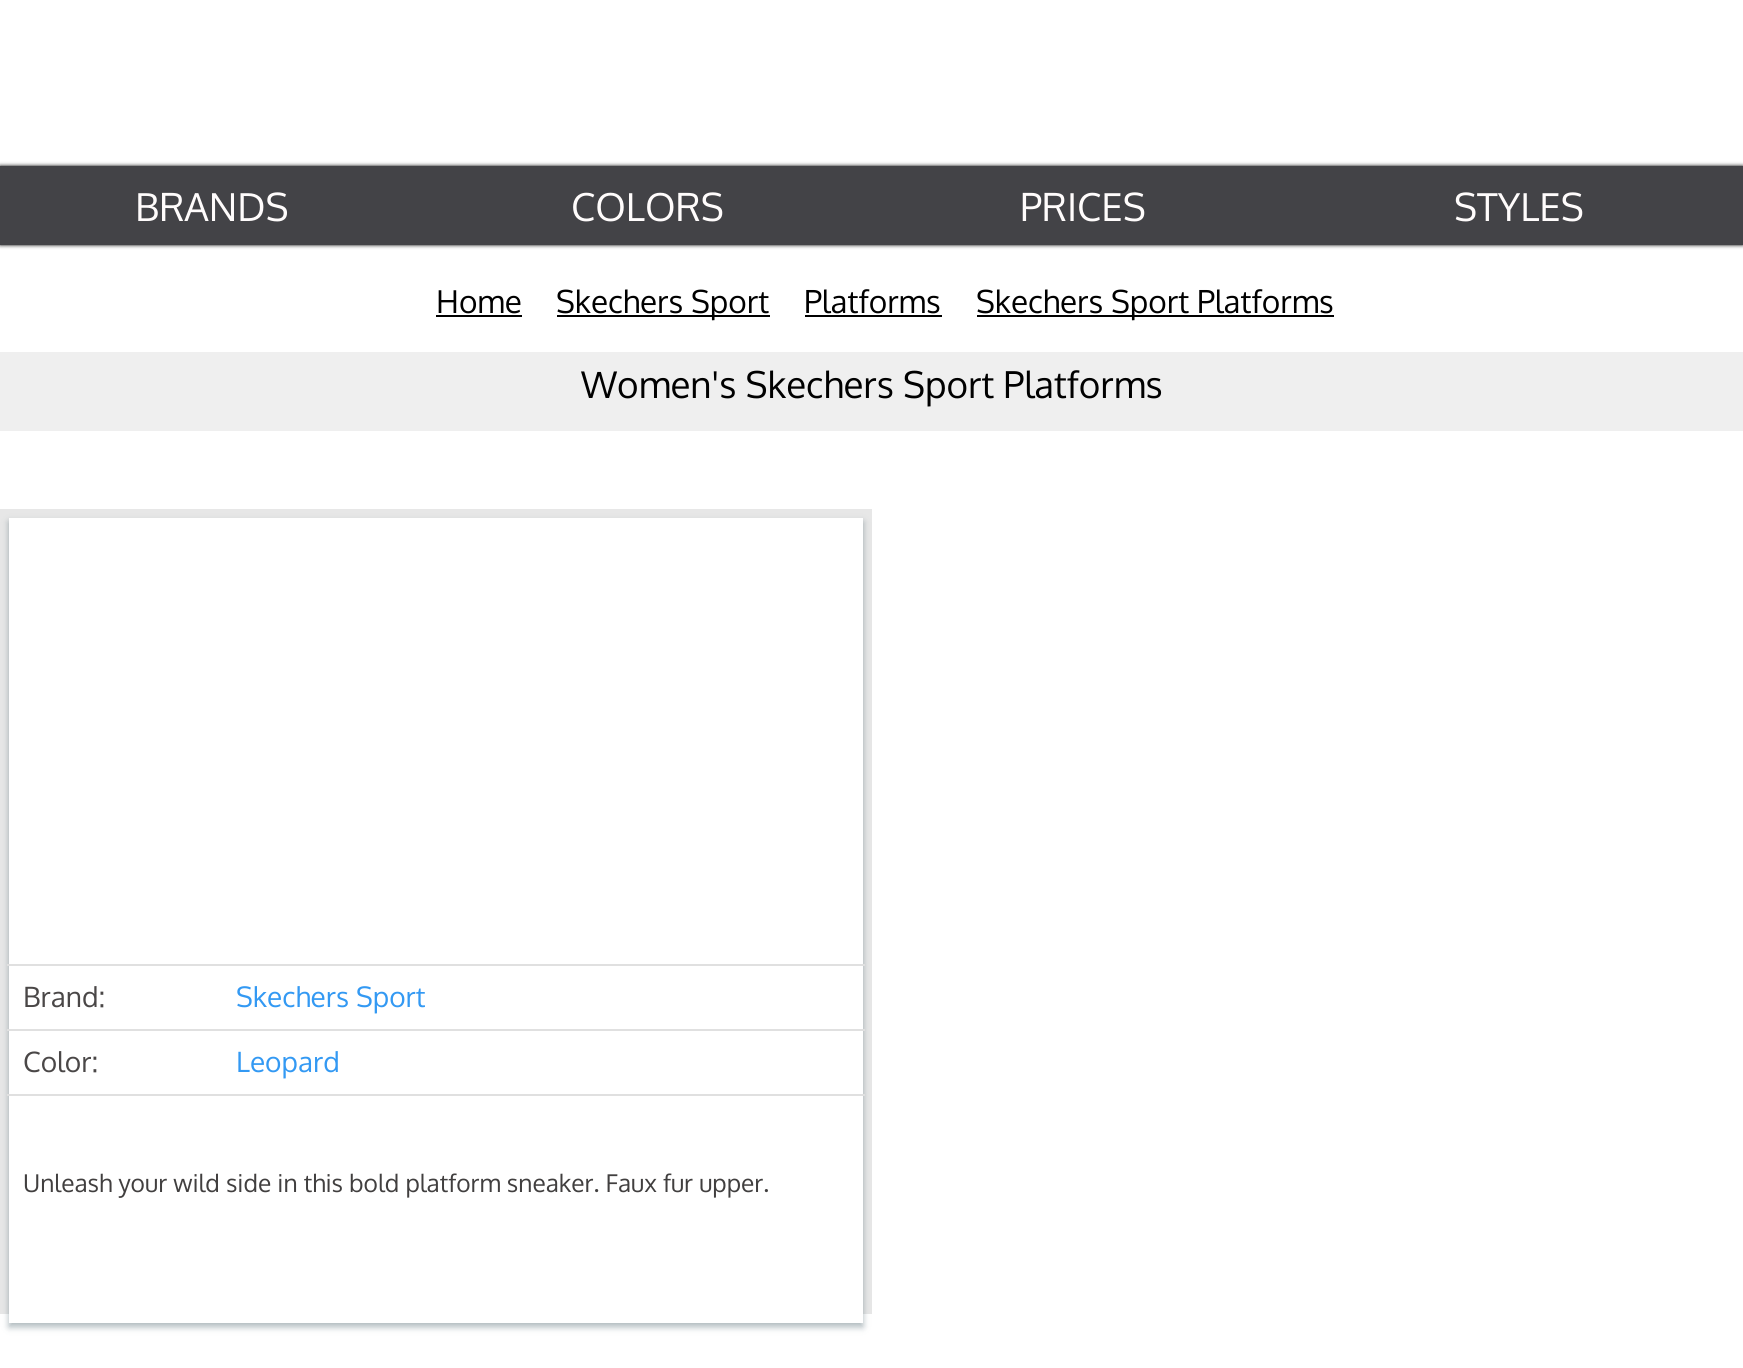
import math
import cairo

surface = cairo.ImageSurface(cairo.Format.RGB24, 1743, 1368)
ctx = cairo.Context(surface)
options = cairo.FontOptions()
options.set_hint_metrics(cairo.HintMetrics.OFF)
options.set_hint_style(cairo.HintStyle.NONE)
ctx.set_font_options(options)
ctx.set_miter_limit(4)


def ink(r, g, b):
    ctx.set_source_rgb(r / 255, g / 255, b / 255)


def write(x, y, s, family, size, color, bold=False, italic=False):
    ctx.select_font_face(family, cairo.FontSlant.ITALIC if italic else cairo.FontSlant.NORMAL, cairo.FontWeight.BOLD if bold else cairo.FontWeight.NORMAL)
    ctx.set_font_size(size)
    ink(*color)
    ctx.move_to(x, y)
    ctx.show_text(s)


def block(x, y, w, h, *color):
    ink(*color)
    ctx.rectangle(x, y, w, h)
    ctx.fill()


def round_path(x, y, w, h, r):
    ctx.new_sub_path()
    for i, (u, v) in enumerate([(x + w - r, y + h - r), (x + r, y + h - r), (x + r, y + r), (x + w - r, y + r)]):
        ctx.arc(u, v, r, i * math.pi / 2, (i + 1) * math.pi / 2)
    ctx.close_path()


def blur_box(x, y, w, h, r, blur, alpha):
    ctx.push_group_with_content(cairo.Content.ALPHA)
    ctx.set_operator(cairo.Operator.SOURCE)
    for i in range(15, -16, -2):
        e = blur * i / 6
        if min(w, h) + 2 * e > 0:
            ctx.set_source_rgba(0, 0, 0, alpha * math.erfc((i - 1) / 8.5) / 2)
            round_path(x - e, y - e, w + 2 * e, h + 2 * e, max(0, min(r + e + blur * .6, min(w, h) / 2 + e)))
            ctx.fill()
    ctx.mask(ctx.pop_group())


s1 = dict(family="Oxygen", size=38.5, color=(255, 252, 252))
s2 = dict(family="Oxygen", size=31.5, color=(0, 0, 0))
s3 = dict(family="Oxygen", size=36.75, color=(0, 0, 0))
s4 = dict(family="Oxygen", size=28, color=(74, 71, 71))
s5 = dict(family="Oxygen", size=28, color=(51, 153, 243))
s6 = dict(family="Oxygen", size=24.5, color=(65, 63, 63))

ink(255, 255, 255)
ctx.paint()
ink(0, 0, 0)
blur_box(0, 166, 1743, 79, 0, 2, 1)
block(0, 166, 1743, 79, 67, 67, 71)
write(135, 221, "BRANDS", **s1)
write(571, 221, "COLORS", **s1)
write(1020, 221, "PRICES", **s1)
write(1454, 221, "STYLES", **s1)
write(436, 313, "Home", **s2)
block(436, 315, 86, 2, 0, 0, 0)
block(557, 315, 213, 2, 0, 0, 0)
write(556, 313, "Skechers Sport", **s2)
write(804, 313, "Platforms", **s2)
block(805, 315, 137, 2, 0, 0, 0)
block(977, 315, 357, 2, 0, 0, 0)
write(976, 313, "Skechers Sport Platforms", **s2)
block(0, 352, 1743, 79, 239, 239, 239)
write(581, 398, "Women's Skechers Sport Platforms", **s3)
block(0, 509, 872, 805, 231, 231, 231)
ink(52, 79, 90)
blur_box(9, 522, 854, 805, 0, 3.5, 0.4)
block(9, 518, 854, 805, 255, 255, 255)
write(23, 1007, "Brand:", **s4)
block(7, 964, 858, 2, 224, 224, 224)
write(236, 1007, "Skechers Sport", **s5)
write(23, 1072, "Color:", **s4)
block(7, 1029, 858, 2, 224, 224, 224)
write(236, 1072, "Leopard", **s5)
block(7, 1094, 858, 2, 224, 224, 224)
write(23, 1192, "Unleash your wild side in this bold platform sneaker. Faux fur upper.", **s6)
surface.write_to_png("screenshot.png")
